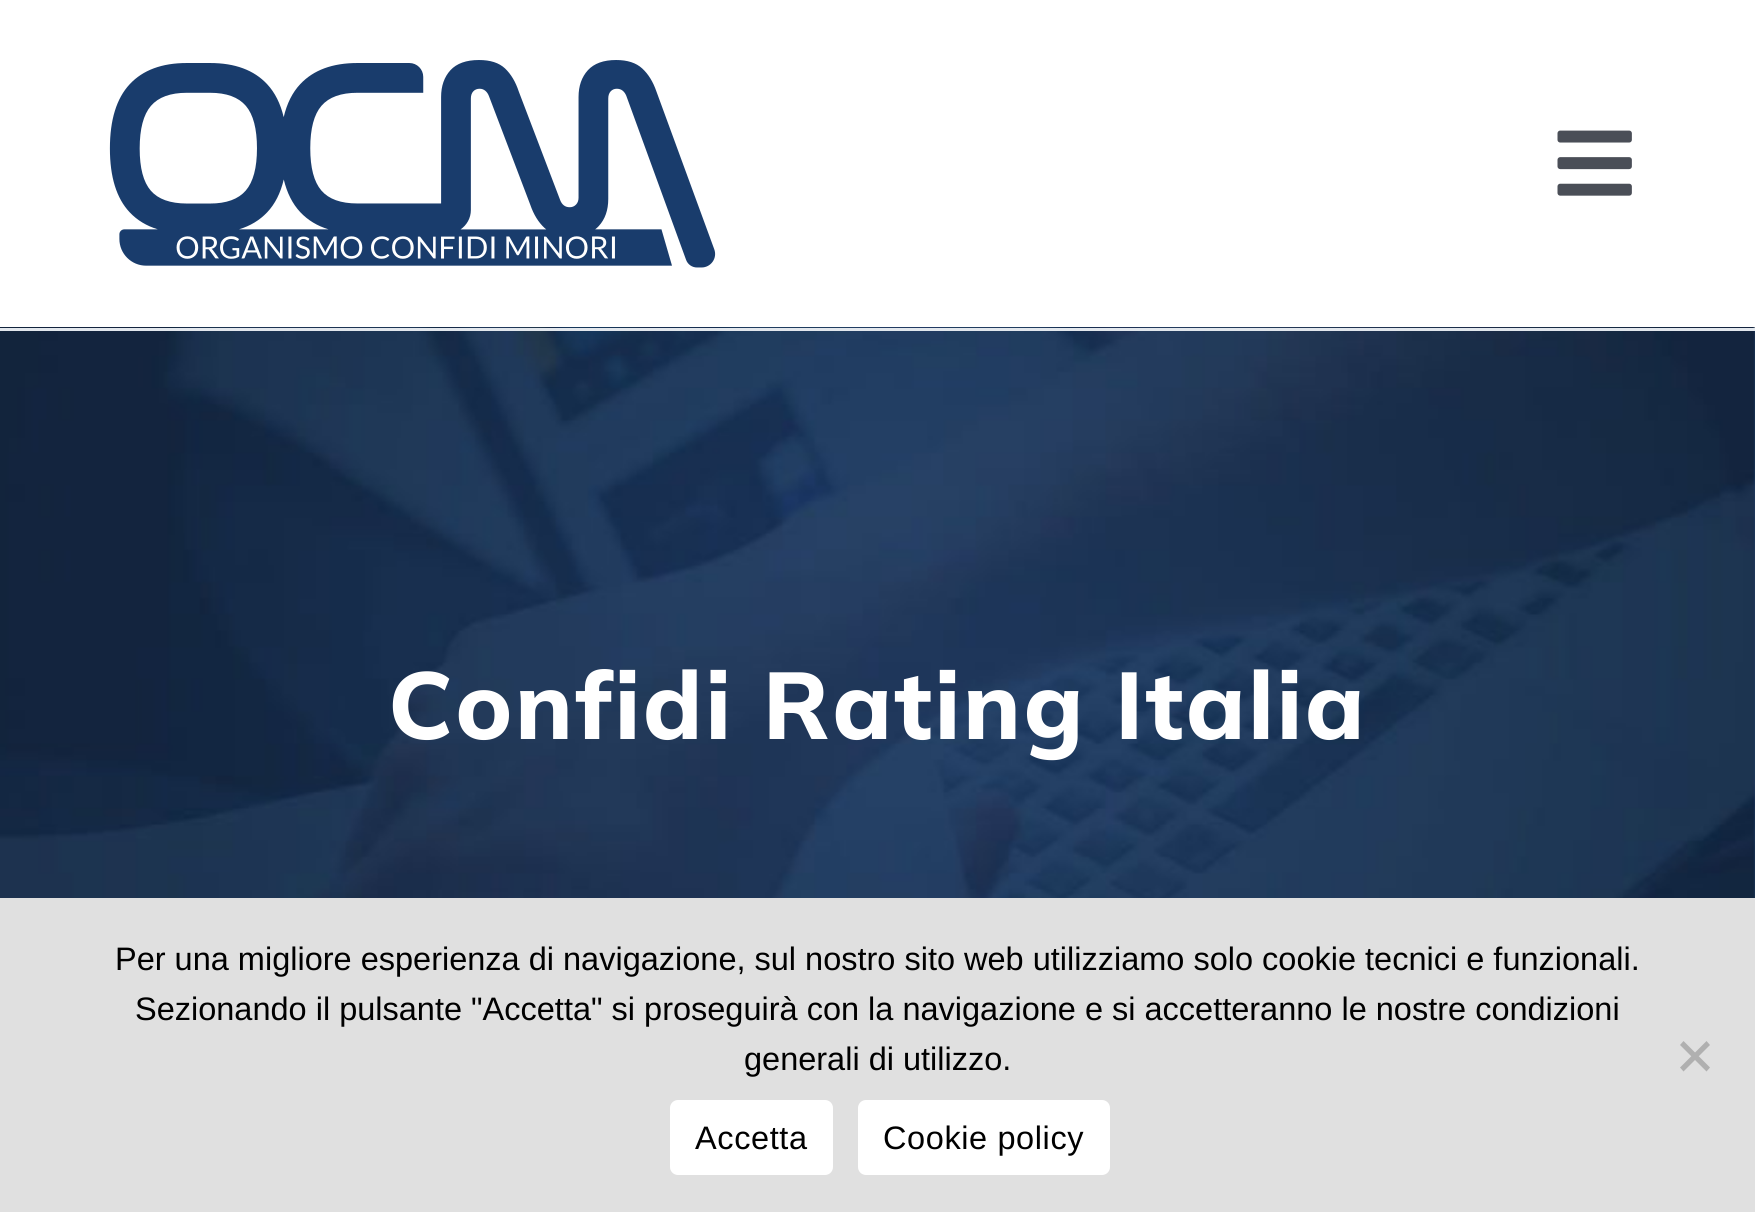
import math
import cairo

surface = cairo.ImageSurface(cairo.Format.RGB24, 1755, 1212)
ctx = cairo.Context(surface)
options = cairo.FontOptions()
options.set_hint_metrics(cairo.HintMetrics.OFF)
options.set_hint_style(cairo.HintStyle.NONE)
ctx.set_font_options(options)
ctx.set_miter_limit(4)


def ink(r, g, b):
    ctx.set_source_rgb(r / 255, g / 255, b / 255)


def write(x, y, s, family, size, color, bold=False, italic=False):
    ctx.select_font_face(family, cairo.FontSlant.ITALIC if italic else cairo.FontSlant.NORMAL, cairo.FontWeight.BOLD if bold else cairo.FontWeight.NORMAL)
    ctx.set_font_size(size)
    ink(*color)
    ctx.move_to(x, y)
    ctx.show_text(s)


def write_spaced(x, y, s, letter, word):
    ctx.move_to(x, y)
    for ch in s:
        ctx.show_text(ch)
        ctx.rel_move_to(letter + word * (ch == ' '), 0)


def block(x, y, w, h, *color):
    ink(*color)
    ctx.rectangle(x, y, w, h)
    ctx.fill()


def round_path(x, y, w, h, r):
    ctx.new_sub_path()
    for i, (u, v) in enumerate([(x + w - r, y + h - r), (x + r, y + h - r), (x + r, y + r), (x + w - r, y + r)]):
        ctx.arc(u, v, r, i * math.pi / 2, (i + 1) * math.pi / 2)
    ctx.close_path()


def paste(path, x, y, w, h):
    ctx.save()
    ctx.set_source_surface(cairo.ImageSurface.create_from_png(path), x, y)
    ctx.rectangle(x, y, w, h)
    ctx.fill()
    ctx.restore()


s1 = dict(family="Liberation Sans", size=32.5, color=(0, 0, 0))

ink(255, 255, 255)
ctx.paint()
paste("pic1.png", 109, 60, 607, 208)
paste("pic2.png", 1557, 130, 75, 66)
block(1753, 331, 2, 567, 33, 61, 101)
paste("pic3.png", 0, 327, 1755, 571)
block(0, 328, 1755, 3, 226, 231, 237)
ctx.select_font_face("Mulish ExtraBold")
ctx.set_font_size(94.6)
ink(255, 255, 255)
write_spaced(388, 739, "Confidi Rating Italia", 2.5, 0)
block(0, 898, 1755, 314, 224, 224, 224)
write(115, 970, "Per una migliore esperienza di navigazione, sul nostro sito web utilizziamo solo cookie tecnici e funzionali.", **s1)
write(135, 1020, "Sezionando il pulsante \"Accetta\" si proseguirà con la navigazione e si accetteranno le nostre condizioni", **s1)
write(744, 1070, "generali di utilizzo.", **s1)
ink(176, 176, 176)
ctx.new_path()
ctx.move_to(1706.5, 1041)
ctx.line_to(1710, 1045)
ctx.line_to(1683.5, 1071.5)
ctx.line_to(1680, 1067.5)
ctx.close_path()
ctx.fill()
ctx.new_path()
ctx.move_to(1680, 1045)
ctx.line_to(1683.5, 1041)
ctx.line_to(1710, 1067.5)
ctx.line_to(1706.5, 1071.5)
ctx.close_path()
ctx.fill()
ink(255, 255, 255)
round_path(670, 1100, 163, 75, 8)
ctx.fill()
ink(0, 0, 0)
write_spaced(695, 1149, "Accetta", 0.6, 0)
ink(255, 255, 255)
round_path(858, 1100, 252, 75, 8)
ctx.fill()
ink(0, 0, 0)
write_spaced(883, 1149, "Cookie policy", 0.6, 0)
surface.write_to_png("screenshot.png")
